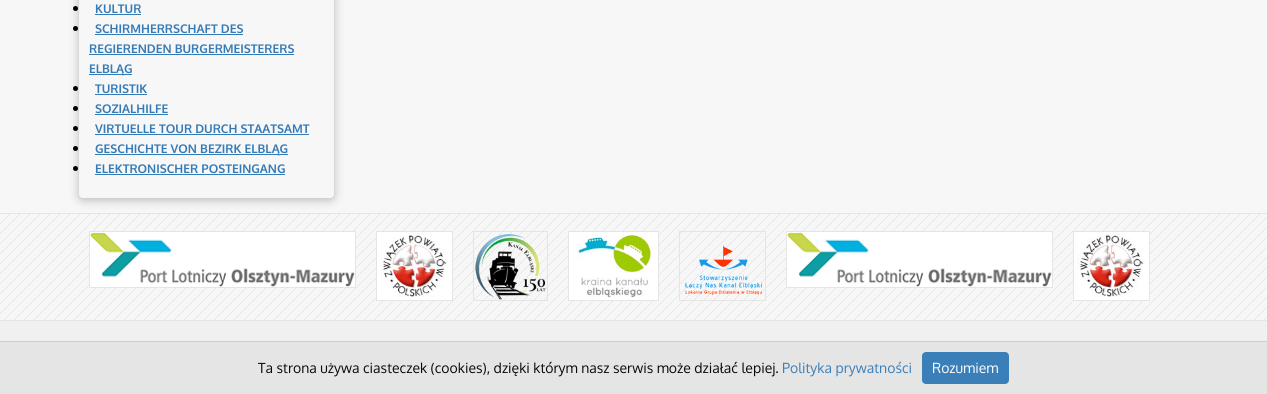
import math
import cairo

surface = cairo.ImageSurface(cairo.Format.RGB24, 1267, 394)
ctx = cairo.Context(surface)
options = cairo.FontOptions()
options.set_hint_metrics(cairo.HintMetrics.OFF)
options.set_hint_style(cairo.HintStyle.NONE)
ctx.set_font_options(options)
ctx.set_miter_limit(4)


def ink(r, g, b):
    ctx.set_source_rgb(r / 255, g / 255, b / 255)


def write(x, y, s, family, size, color, bold=False, italic=False):
    ctx.select_font_face(family, cairo.FontSlant.ITALIC if italic else cairo.FontSlant.NORMAL, cairo.FontWeight.BOLD if bold else cairo.FontWeight.NORMAL)
    ctx.set_font_size(size)
    ink(*color)
    ctx.move_to(x, y)
    ctx.show_text(s)


def block(x, y, w, h, *color):
    ink(*color)
    ctx.rectangle(x, y, w, h)
    ctx.fill()


def round_path(x, y, w, h, r):
    ctx.new_sub_path()
    for i, (u, v) in enumerate([(x + w - r, y + h - r), (x + r, y + h - r), (x + r, y + r), (x + w - r, y + r)]):
        ctx.arc(u, v, r, i * math.pi / 2, (i + 1) * math.pi / 2)
    ctx.close_path()


def blur_box(x, y, w, h, r, blur, alpha):
    ctx.push_group_with_content(cairo.Content.ALPHA)
    ctx.set_operator(cairo.Operator.SOURCE)
    for i in range(15, -16, -2):
        e = blur * i / 6
        if min(w, h) + 2 * e > 0:
            ctx.set_source_rgba(0, 0, 0, alpha * math.erfc((i - 1) / 8.5) / 2)
            round_path(x - e, y - e, w + 2 * e, h + 2 * e, max(0, min(r + e + blur * .6, min(w, h) / 2 + e)))
            ctx.fill()
    ctx.mask(ctx.pop_group())


def paste(path, x, y, w, h):
    ctx.save()
    ctx.set_source_surface(cairo.ImageSurface.create_from_png(path), x, y)
    ctx.rectangle(x, y, w, h)
    ctx.fill()
    ctx.restore()


s1 = dict(family="Oxygen", size=12, color=(51, 122, 183), bold=True)
s2 = dict(family="Oxygen", size=14, color=(10, 10, 10))
s3 = dict(family="Oxygen", size=14, color=(59, 127, 185))
s4 = dict(family="Oxygen", size=14, color=(254, 254, 254))

ink(247, 247, 247)
ctx.paint()
paste("pic1.png", 0, 214, 1267, 106)
block(0, 213, 1267, 1, 229, 229, 229)
ink(56, 56, 56)
blur_box(79, -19, 255, 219, 4, 5, 0.33)
ink(247, 247, 247)
round_path(79, -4, 255, 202, 4)
ctx.fill()
ink(0, 0, 0)
ctx.arc(75.5, 8.5, 2.5, 0, 2 * math.pi)
ctx.fill()
write(95, 13, "KULTUR", **s1)
block(95, 14, 46, 1, 51, 122, 183)
ink(0, 0, 0)
ctx.new_path()
ctx.arc(75.5, 28.5, 2.5, 0, 2 * math.pi)
ctx.fill()
write(95, 33, "SCHIRMHERRSCHAFT DES", **s1)
block(95, 34, 148, 1, 51, 122, 183)
write(89, 53, "REGIERENDEN BURGERMEISTERERS", **s1)
block(89, 54, 205, 1, 51, 122, 183)
block(89, 74, 43, 1, 51, 122, 183)
write(89, 73, "ELBLĄG", **s1)
ink(0, 0, 0)
ctx.new_path()
ctx.arc(75.5, 88.5, 2.5, 0, 2 * math.pi)
ctx.fill()
write(95, 93, "TURISTIK", **s1)
block(95, 94, 52, 1, 51, 122, 183)
ink(0, 0, 0)
ctx.new_path()
ctx.arc(75.5, 108.5, 2.5, 0, 2 * math.pi)
ctx.fill()
write(95, 113, "SOZIALHILFE", **s1)
block(95, 114, 73, 1, 51, 122, 183)
ink(0, 0, 0)
ctx.new_path()
ctx.arc(75.5, 128.5, 2.5, 0, 2 * math.pi)
ctx.fill()
write(95, 133, "VIRTUELLE TOUR DURCH STAATSAMT", **s1)
block(95, 134, 214, 1, 51, 122, 183)
ink(0, 0, 0)
ctx.new_path()
ctx.arc(75.5, 148.5, 2.5, 0, 2 * math.pi)
ctx.fill()
block(95, 154, 193, 1, 51, 122, 183)
write(95, 153, "GESCHICHTE VON BEZIRK ELBLĄG", **s1)
ink(0, 0, 0)
ctx.new_path()
ctx.arc(75.5, 168.5, 2.5, 0, 2 * math.pi)
ctx.fill()
write(95, 173, "ELEKTRONISCHER POSTEINGANG", **s1)
block(95, 174, 190, 1, 51, 122, 183)
block(0, 320, 1267, 1, 229, 229, 229)
ctx.rectangle(89.5, 231.5, 266, 56)
ctx.set_line_width(1)
ctx.stroke()
paste("pic2.png", 90, 232, 265, 55)
ctx.rectangle(376.5, 231.5, 76, 69)
ctx.stroke()
paste("pic3.png", 377, 232, 75, 68)
ctx.rectangle(473.5, 231.5, 74, 69)
ctx.stroke()
paste("pic4.png", 475, 234, 71, 66)
ctx.rectangle(568.5, 231.5, 90, 69)
ctx.stroke()
paste("pic5.png", 569, 232, 89, 68)
ctx.rectangle(679.5, 231.5, 86, 69)
ctx.stroke()
paste("pic6.png", 684, 245, 78, 51)
ctx.rectangle(786.5, 231.5, 266, 56)
ctx.stroke()
paste("pic2.png", 787, 232, 265, 55)
ctx.rectangle(1073.5, 231.5, 76, 69)
ctx.stroke()
paste("pic7.png", 1074, 232, 75, 68)
block(0, 321, 1267, 73, 240, 240, 240)
ctx.set_source_rgba(0.898, 0.898, 0.898, 0.96)
ctx.rectangle(0, 341, 1267, 53)
ctx.fill()
ctx.set_source_rgba(0.8, 0.8, 0.8, 0.96)
ctx.rectangle(0, 341, 1267, 1)
ctx.fill()
write(258, 373, "Ta strona używa ciasteczek (cookies), dzięki którym nasz serwis może działać lepiej.", **s2)
write(782, 373, "Polityka prywatności", **s3)
round_path(922, 352, 87, 32, 4)
ctx.fill()
write(932, 373, "Rozumiem", **s4)
surface.write_to_png("screenshot.png")
